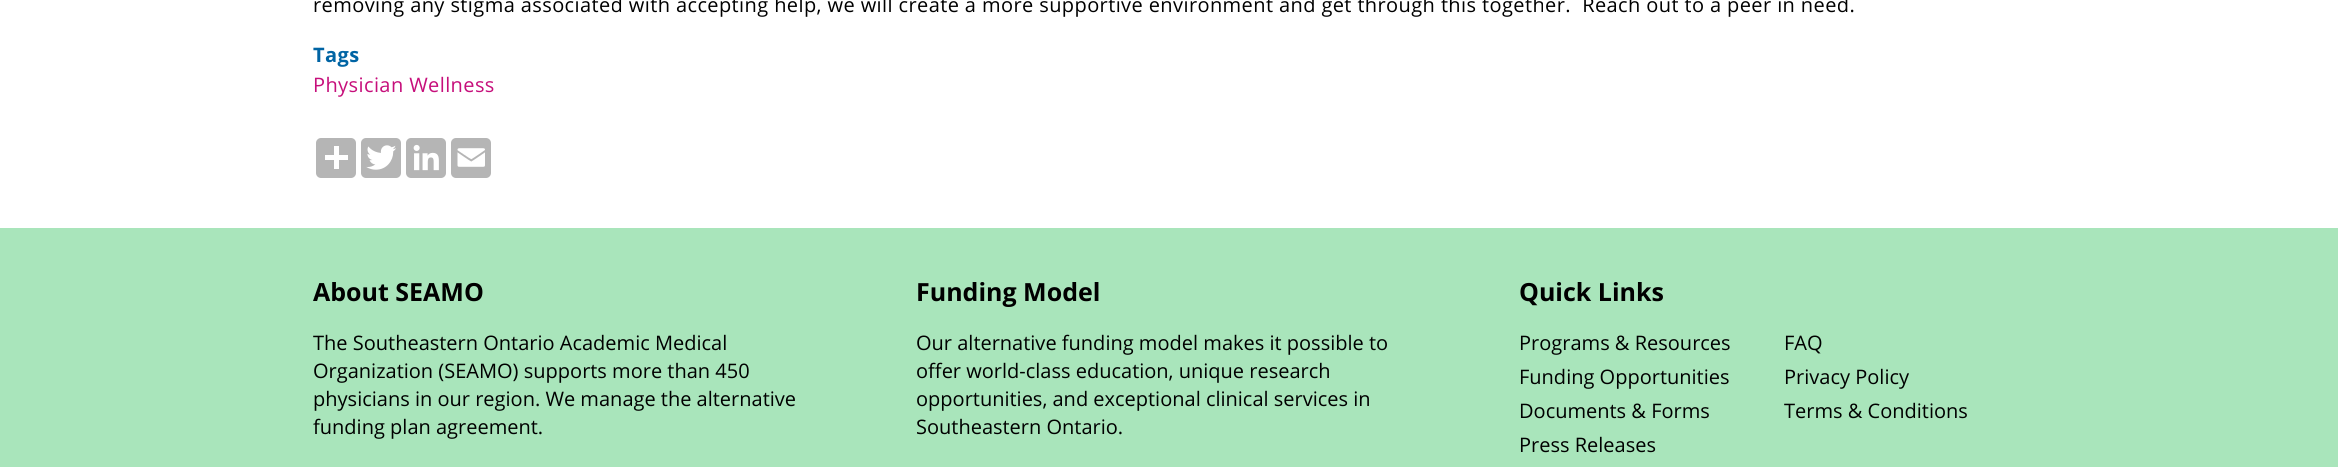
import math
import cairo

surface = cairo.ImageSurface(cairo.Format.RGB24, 2338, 467)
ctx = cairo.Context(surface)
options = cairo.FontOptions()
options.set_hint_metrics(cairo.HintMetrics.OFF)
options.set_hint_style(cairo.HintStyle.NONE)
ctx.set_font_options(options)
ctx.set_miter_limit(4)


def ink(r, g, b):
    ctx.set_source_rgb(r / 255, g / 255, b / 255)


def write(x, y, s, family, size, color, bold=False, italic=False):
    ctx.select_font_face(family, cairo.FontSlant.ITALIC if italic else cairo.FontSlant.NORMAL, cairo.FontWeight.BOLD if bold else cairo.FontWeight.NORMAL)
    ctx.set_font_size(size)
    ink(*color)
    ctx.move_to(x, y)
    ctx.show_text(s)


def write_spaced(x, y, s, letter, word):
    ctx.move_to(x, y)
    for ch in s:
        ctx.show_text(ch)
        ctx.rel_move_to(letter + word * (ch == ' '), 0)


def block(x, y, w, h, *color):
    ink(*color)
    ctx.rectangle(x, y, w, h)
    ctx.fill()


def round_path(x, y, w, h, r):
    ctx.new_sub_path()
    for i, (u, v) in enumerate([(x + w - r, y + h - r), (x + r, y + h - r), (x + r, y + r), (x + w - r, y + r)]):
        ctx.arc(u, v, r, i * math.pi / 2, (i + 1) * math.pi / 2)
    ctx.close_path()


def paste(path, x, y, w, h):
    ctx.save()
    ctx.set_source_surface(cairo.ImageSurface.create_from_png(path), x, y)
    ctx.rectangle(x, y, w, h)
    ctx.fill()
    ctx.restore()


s1 = dict(family="Open Sans", size=25, color=(0, 0, 0), bold=True)
s2 = dict(family="Open Sans", size=20, color=(0, 0, 0))

ink(255, 255, 255)
ctx.paint()
ctx.select_font_face("Open Sans")
ctx.set_font_size(20)
ink(0, 0, 0)
write_spaced(313, 12, "removing any stigma associated with accepting help, we will create a more supportive environment and get through this together.  Reach out to a peer in need.", 0.4, 0)
ctx.select_font_face("Open Sans", cairo.FontSlant.NORMAL, cairo.FontWeight.BOLD)
ink(0, 100, 164)
write_spaced(313, 62, "Tags", 0.4, 0)
ctx.select_font_face("Open Sans")
ink(198, 15, 123)
write_spaced(313, 92, "Physician Wellness", 0.4, 0)
ink(181, 181, 181)
round_path(316, 138, 40, 40, 5)
ctx.fill()
block(334, 146, 5, 23, 255, 255, 255)
block(325, 155, 23, 5, 255, 255, 255)
ink(181, 181, 181)
round_path(361, 138, 40, 40, 5)
ctx.fill()
paste("pic1.png", 366, 145, 30, 25)
round_path(406, 138, 40, 40, 5)
ctx.fill()
paste("pic2.png", 413, 144, 26, 27)
round_path(451, 138, 40, 40, 5)
ctx.fill()
paste("pic3.png", 457, 148, 28, 19)
block(0, 228, 2338, 239, 169, 229, 187)
write(313, 301, "About SEAMO", **s1)
write(313, 350, "The Southeastern Ontario Academic Medical", **s2)
write(313, 378, "Organization (SEAMO) supports more than 450", **s2)
write(313, 406, "physicians in our region. We manage the alternative", **s2)
write(313, 434, "funding plan agreement.", **s2)
write(916, 301, "Funding Model", **s1)
write(916, 350, "Our alternative funding model makes it possible to", **s2)
write(916, 378, "offer world-class education, unique research", **s2)
write(916, 406, "opportunities, and exceptional clinical services in", **s2)
write(916, 434, "Southeastern Ontario.", **s2)
write(1519, 301, "Quick Links", **s1)
write(1519, 350, "Programs & Resources", **s2)
write(1784, 350, "FAQ", **s2)
write(1519, 384, "Funding Opportunities", **s2)
write(1784, 384, "Privacy Policy", **s2)
write(1519, 418, "Documents & Forms", **s2)
write(1784, 418, "Terms & Conditions", **s2)
write(1519, 452, "Press Releases", **s2)
surface.write_to_png("screenshot.png")
